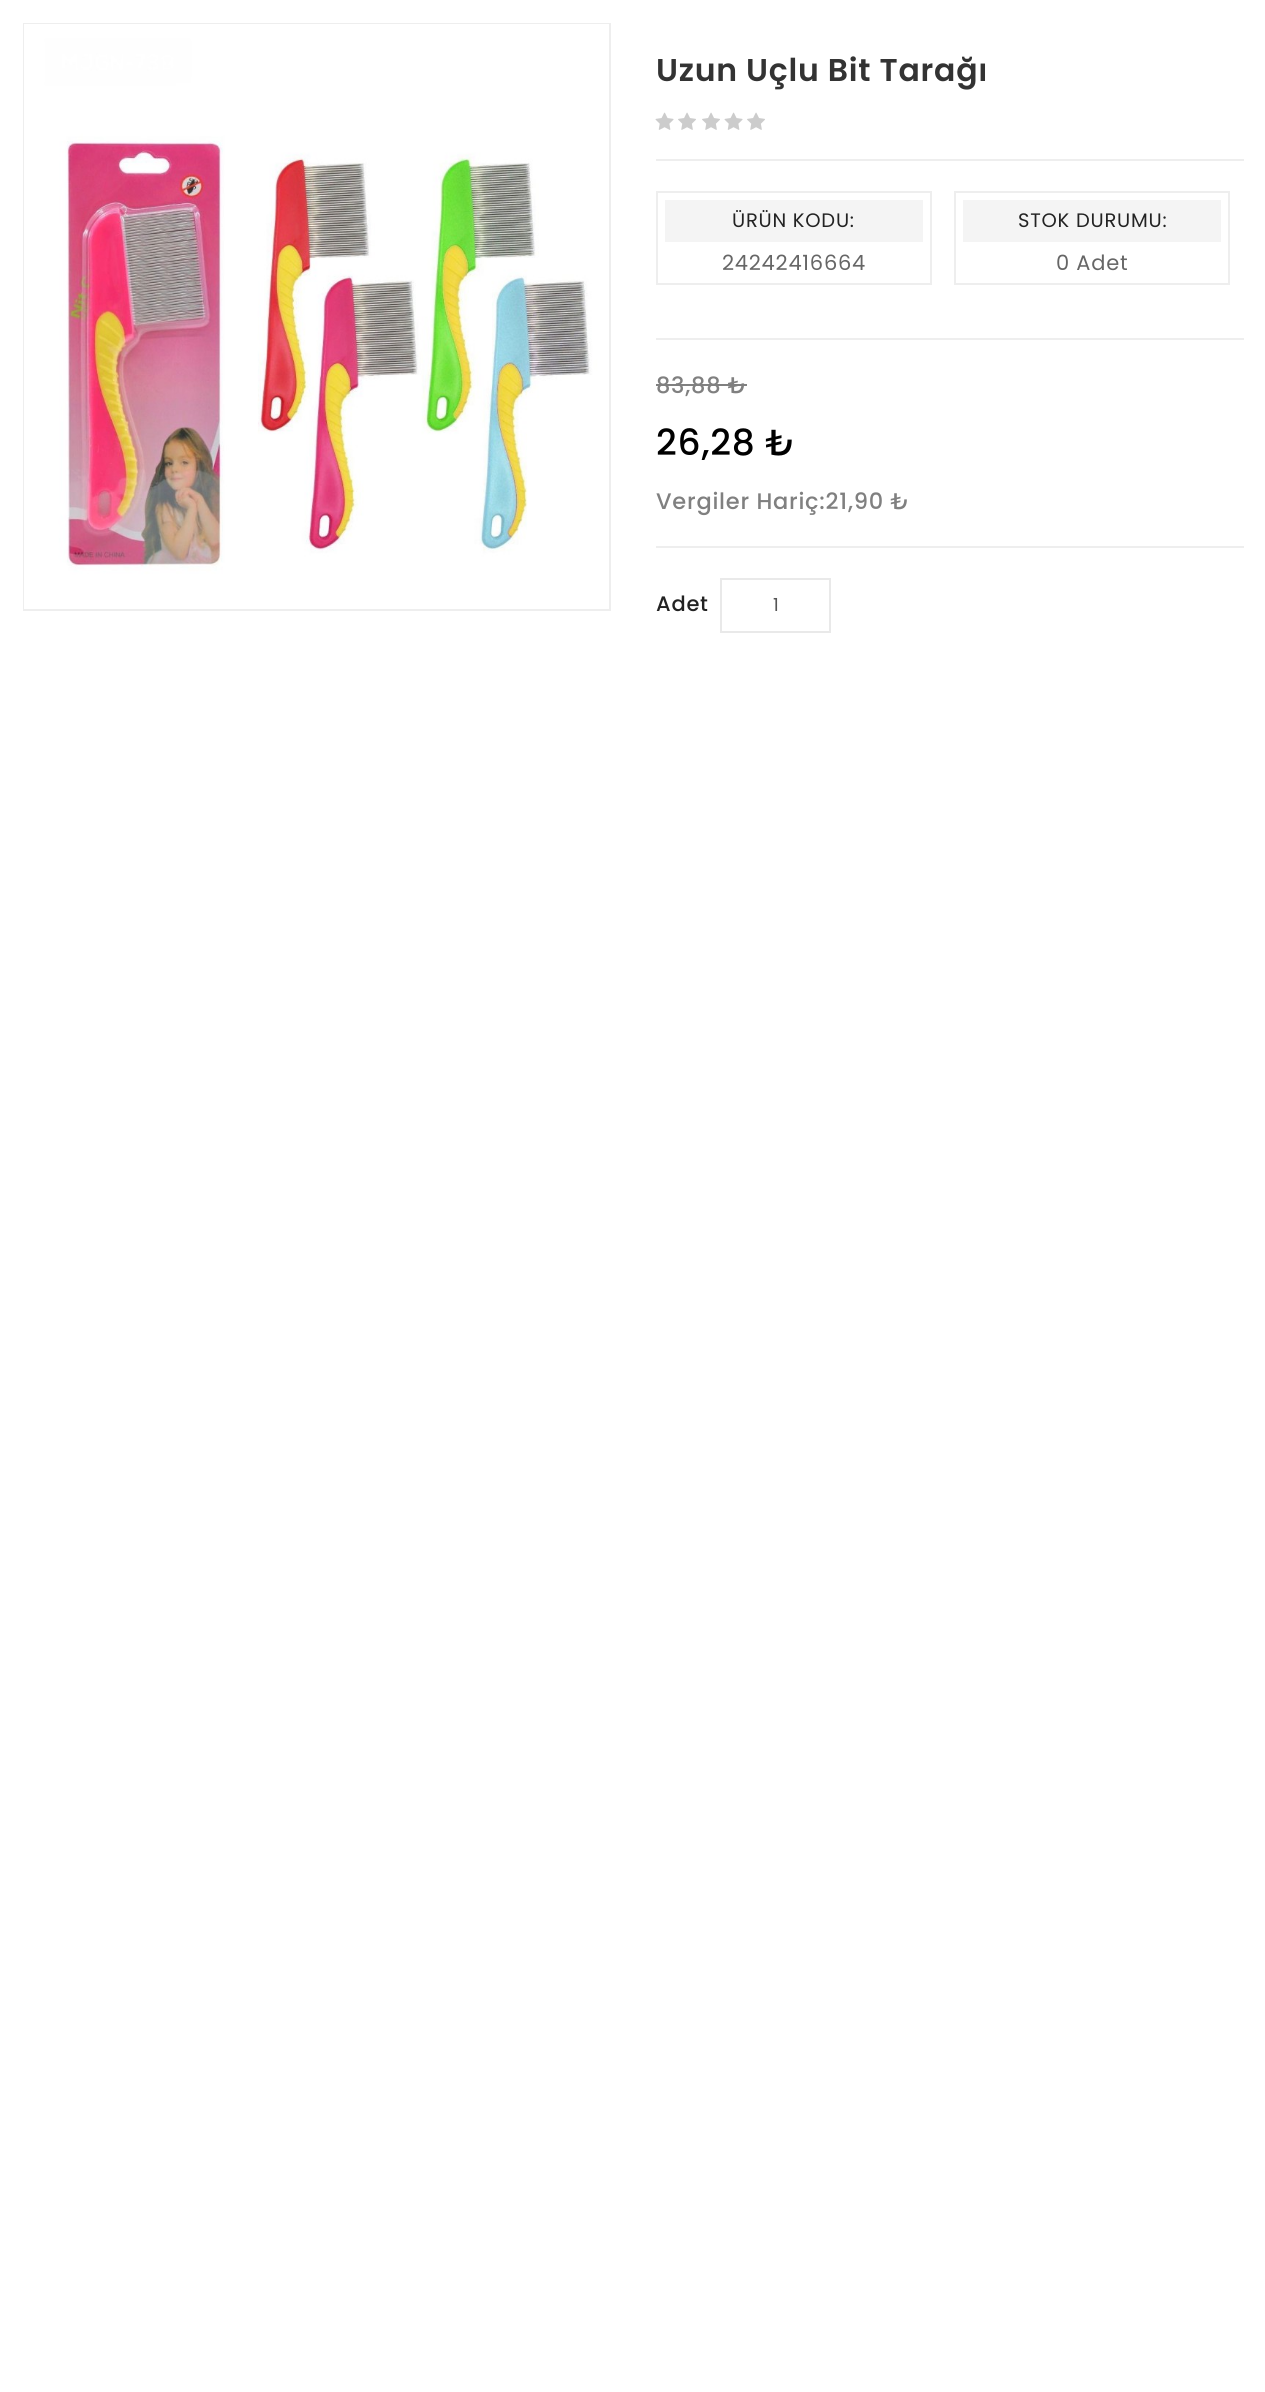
import math
import cairo

surface = cairo.ImageSurface(cairo.Format.RGB24, 1265, 2392)
ctx = cairo.Context(surface)
options = cairo.FontOptions()
options.set_hint_metrics(cairo.HintMetrics.OFF)
options.set_hint_style(cairo.HintStyle.NONE)
ctx.set_font_options(options)
ctx.set_miter_limit(4)


def ink(r, g, b):
    ctx.set_source_rgb(r / 255, g / 255, b / 255)


def write(x, y, s, family, size, color, bold=False, italic=False):
    ctx.select_font_face(family, cairo.FontSlant.ITALIC if italic else cairo.FontSlant.NORMAL, cairo.FontWeight.BOLD if bold else cairo.FontWeight.NORMAL)
    ctx.set_font_size(size)
    ink(*color)
    ctx.move_to(x, y)
    ctx.show_text(s)


def write_spaced(x, y, s, letter, word):
    ctx.move_to(x, y)
    for ch in s:
        ctx.show_text(ch)
        ctx.rel_move_to(letter + word * (ch == ' '), 0)


def block(x, y, w, h, *color):
    ink(*color)
    ctx.rectangle(x, y, w, h)
    ctx.fill()


def paste(path, x, y, w, h):
    ctx.save()
    ctx.set_source_surface(cairo.ImageSurface.create_from_png(path), x, y)
    ctx.rectangle(x, y, w, h)
    ctx.fill()
    ctx.restore()


s1 = dict(family="Poppins", size=18, color=(85, 85, 85))

ink(255, 255, 255)
ctx.paint()
ctx.rectangle(24, 24, 586, 586)
ink(238, 238, 238)
ctx.stroke()
paste("pic1.png", 24, 24, 585, 585)
ctx.select_font_face("Poppins SemiBold")
ctx.set_font_size(31.5)
ink(51, 51, 51)
write_spaced(656, 81, "Uzun Uçlu Bit Tarağı", 0.75, 0)
paste("pic2.png", 655, 112, 19, 18)
paste("pic3.png", 678, 112, 18, 18)
paste("pic3.png", 702, 112, 18, 18)
paste("pic2.png", 724, 112, 19, 18)
paste("pic3.png", 747, 112, 18, 18)
block(656, 159, 588, 2, 238, 238, 238)
block(656, 338, 588, 2, 238, 238, 238)
ctx.rectangle(657, 192, 274, 92)
ctx.stroke()
block(665, 200, 258, 42, 244, 244, 244)
ctx.select_font_face("Poppins")
ctx.set_font_size(19.5)
ink(35, 35, 35)
write_spaced(732, 227, "ÜRÜN KODU:", 0.75, 0)
ctx.set_font_size(21)
ink(102, 102, 102)
write_spaced(722, 270, "24242416664", 0.75, 0)
ctx.rectangle(955, 192, 274, 92)
ink(238, 238, 238)
ctx.stroke()
block(963, 200, 258, 42, 244, 244, 244)
ctx.set_font_size(19.5)
ink(35, 35, 35)
write_spaced(1018, 227, "STOK DURUMU:", 0.75, 0)
ctx.set_font_size(21)
ink(102, 102, 102)
write_spaced(1056, 270, "0 Adet", 0.75, 0)
ctx.select_font_face("Poppins Medium")
ctx.set_font_size(22.5)
ink(128, 128, 128)
write_spaced(656, 393, "83,88 ₺", 0.75, 0)
block(656, 384, 91, 2, 128, 128, 128)
ctx.set_font_size(36)
ink(0, 0, 0)
write_spaced(656, 455, "26,28 ₺", 0.75, 0)
ctx.set_font_size(22.5)
ink(128, 128, 128)
write_spaced(656, 509, "Vergiler Hariç:21,90 ₺", 0.75, 0)
block(656, 546, 588, 2, 238, 238, 238)
ctx.set_font_size(21)
ink(35, 35, 35)
write_spaced(656, 611, "Adet", 0.75, 0)
ctx.rectangle(721, 579, 109, 53)
ink(233, 233, 233)
ctx.stroke()
write(773, 611, "1", **s1)
surface.write_to_png("screenshot.png")
